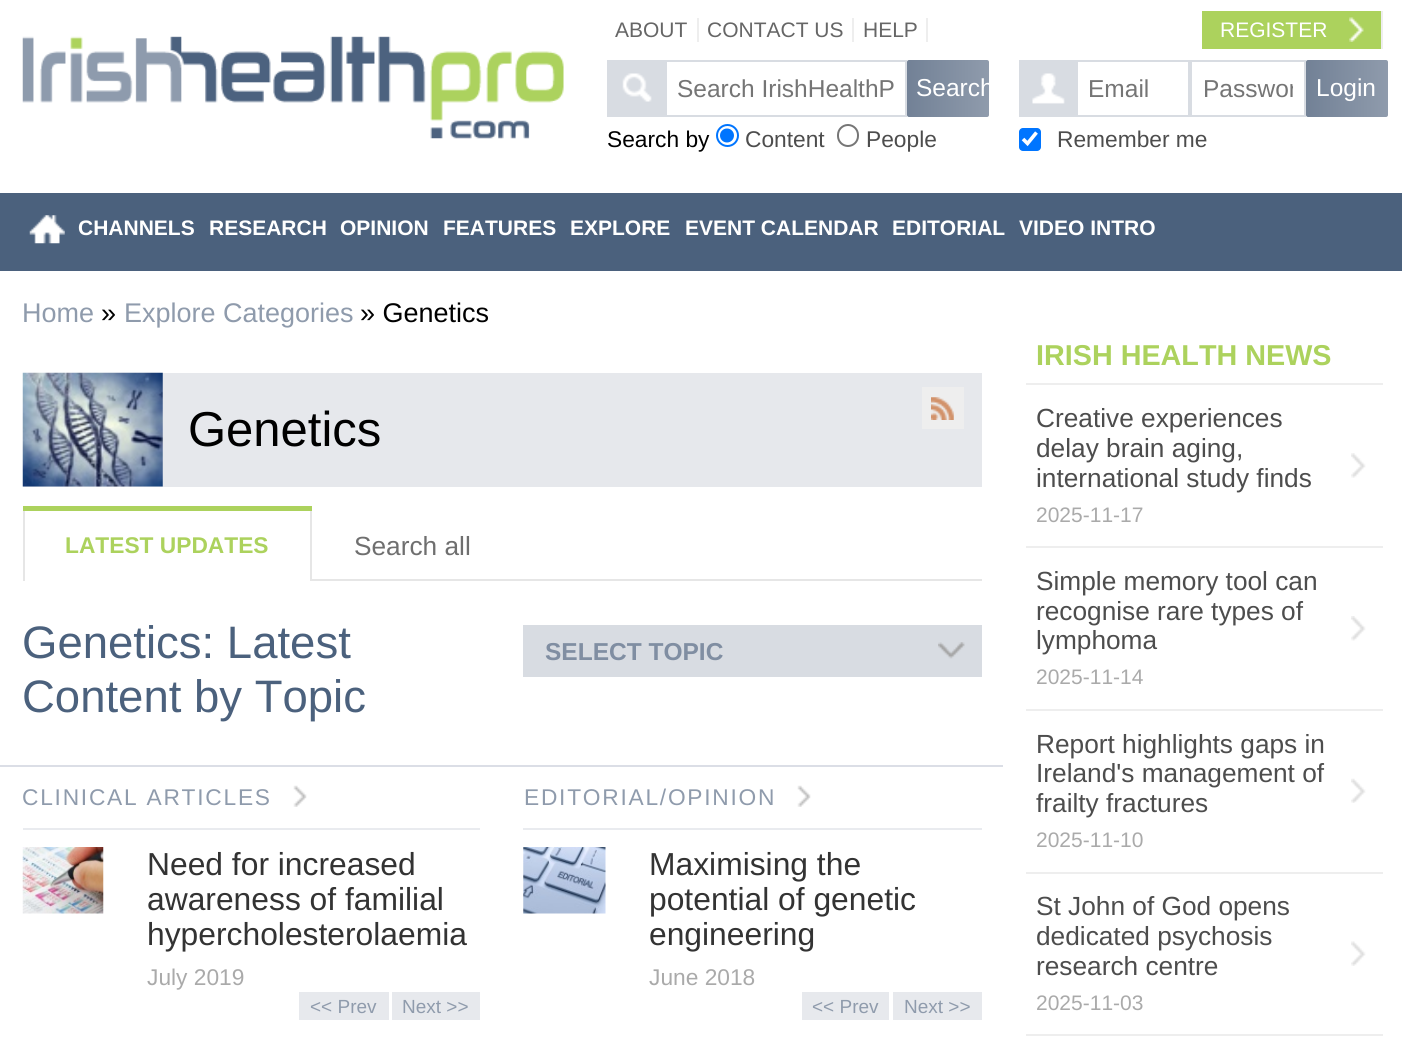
import math
import cairo

surface = cairo.ImageSurface(cairo.Format.RGB24, 1402, 1044)
ctx = cairo.Context(surface)
options = cairo.FontOptions()
options.set_hint_metrics(cairo.HintMetrics.OFF)
options.set_hint_style(cairo.HintStyle.NONE)
ctx.set_font_options(options)
ctx.set_miter_limit(4)


def ink(r, g, b):
    ctx.set_source_rgb(r / 255, g / 255, b / 255)


def write(x, y, s, family, size, color, bold=False, italic=False):
    ctx.select_font_face(family, cairo.FontSlant.ITALIC if italic else cairo.FontSlant.NORMAL, cairo.FontWeight.BOLD if bold else cairo.FontWeight.NORMAL)
    ctx.set_font_size(size)
    ink(*color)
    ctx.move_to(x, y)
    ctx.show_text(s)


def write_spaced(x, y, s, letter, word):
    ctx.move_to(x, y)
    for ch in s:
        ctx.show_text(ch)
        ctx.rel_move_to(letter + word * (ch == ' '), 0)


def block(x, y, w, h, *color):
    ink(*color)
    ctx.rectangle(x, y, w, h)
    ctx.fill()


def round_path(x, y, w, h, r):
    ctx.new_sub_path()
    for i, (u, v) in enumerate([(x + w - r, y + h - r), (x + r, y + h - r), (x + r, y + r), (x + w - r, y + r)]):
        ctx.arc(u, v, r, i * math.pi / 2, (i + 1) * math.pi / 2)
    ctx.close_path()


def paste(path, x, y, w, h):
    ctx.save()
    ctx.set_source_surface(cairo.ImageSurface.create_from_png(path), x, y)
    ctx.rectangle(x, y, w, h)
    ctx.fill()
    ctx.restore()


s1 = dict(family="Liberation Sans", size=21, color=(102, 102, 102))
s2 = dict(family="Liberation Sans", size=21, color=(255, 255, 255))
s3 = dict(family="Liberation Sans", size=24.5, color=(117, 117, 117))
s4 = dict(family="Liberation Sans", size=24.5, color=(255, 255, 255))
s5 = dict(family="Liberation Sans", size=22.75, color=(0, 0, 0))
s6 = dict(family="Liberation Sans", size=22.75, color=(77, 77, 77))
s7 = dict(family="Liberation Sans", size=21, color=(255, 255, 255), bold=True)
s8 = dict(family="Liberation Sans", size=27, color=(143, 155, 172))
s9 = dict(family="Liberation Sans", size=27, color=(0, 0, 0))
s10 = dict(family="Liberation Sans", size=49, color=(0, 0, 0))
s11 = dict(family="Liberation Sans", size=22.75, color=(172, 210, 93), bold=True)
s12 = dict(family="Liberation Sans", size=26.25, color=(111, 111, 111))
s13 = dict(family="Liberation Sans", size=45.5, color=(75, 97, 125))
s14 = dict(family="Liberation Sans", size=24.5, color=(128, 142, 162), bold=True)
s15 = dict(family="Liberation Sans", size=31.8, color=(51, 51, 51))
s16 = dict(family="Liberation Sans", size=22.75, color=(170, 170, 170))
s17 = dict(family="Liberation Sans", size=19, color=(143, 155, 172))
s18 = dict(family="Liberation Sans", size=28.75, color=(172, 210, 93), bold=True)
s19 = dict(family="Liberation Sans", size=26.25, color=(77, 77, 77))
s20 = dict(family="Liberation Sans", size=21, color=(170, 170, 170))

ink(255, 255, 255)
ctx.paint()
paste("pic1.png", 22, 36, 542, 103)
write(615, 37, "ABOUT", **s1)
block(697, 18, 2, 24, 238, 238, 238)
write(707, 37, "CONTACT US", **s1)
block(852, 18, 2, 24, 238, 238, 238)
write(863, 37, "HELP", **s1)
block(926, 18, 2, 24, 238, 238, 238)
block(1202, 11, 179, 38, 172, 210, 93)
write(1220, 37, "REGISTER", **s2)
block(1381, 11, 2, 38, 238, 238, 238)
paste("pic2.png", 1349, 17, 15, 25)
block(607, 60, 58, 57, 216, 220, 226)
paste("pic3.png", 622, 73, 30, 29)
ctx.rectangle(666, 61, 240, 55)
ctx.stroke()
write(677, 97, "Search IrishHealthP", **s3)
gradient = cairo.LinearGradient(989, 88, 907, 88)
gradient.add_color_stop_rgba(0, 0.561, 0.608, 0.675, 1)
gradient.add_color_stop_rgba(1, 0.447, 0.506, 0.588, 1)
ctx.set_source(gradient)
round_path(907, 60, 82, 57, 2)
ctx.fill()
ctx.save()
round_path(907, 60, 82, 57, 2)
ctx.clip()
write(916, 96, "Search", **s4)
ctx.restore()
write(607, 147, "Search by", **s5)
ctx.new_path()
ctx.arc(727.5, 135.5, 10.5, 0, 2 * math.pi)
ink(0, 117, 255)
ctx.stroke()
ctx.arc(727, 135.5, 7, 0, 2 * math.pi)
ctx.fill()
write(745, 147, "Content", **s6)
round_path(838, 125, 20, 21, 10)
ink(118, 118, 118)
ctx.stroke()
write(866, 147, "People", **s6)
block(1019, 60, 57, 57, 216, 220, 226)
paste("pic4.png", 1032, 73, 33, 31)
ctx.rectangle(1077, 61, 112, 55)
ctx.stroke()
write(1088, 97, "Email", **s3)
ctx.rectangle(1191, 61, 114, 55)
ink(216, 220, 226)
ctx.stroke()
ctx.save()
ctx.rectangle(1202, 75, 91, 28)
ctx.clip()
write(1203, 97, "Passwor", **s3)
ctx.restore()
gradient = cairo.LinearGradient(1388, 88, 1306, 88)
gradient.add_color_stop_rgba(0, 0.561, 0.608, 0.675, 1)
gradient.add_color_stop_rgba(1, 0.447, 0.506, 0.588, 1)
ctx.set_source(gradient)
round_path(1306, 60, 82, 57, 2)
ctx.fill()
write(1316, 96, "Login", **s4)
ink(0, 117, 255)
round_path(1019, 128, 22, 23, 4)
ctx.fill()
ctx.new_path()
ctx.move_to(1023, 139)
ctx.line_to(1027.5, 143.5)
ctx.line_to(1036.5, 132.5)
ink(255, 255, 255)
ctx.set_line_width(3.6)
ctx.stroke()
write(1057, 147, "Remember me", **s6)
block(0, 193, 1402, 78, 75, 97, 125)
paste("pic5.png", 29, 215, 36, 29)
write(78, 235, "CHANNELS", **s7)
write(209, 235, "RESEARCH", **s7)
write(340, 235, "OPINION", **s7)
write(443, 235, "FEATURES", **s7)
write(570, 235, "EXPLORE", **s7)
write(685, 235, "EVENT CALENDAR", **s7)
write(892, 235, "EDITORIAL", **s7)
write(1019, 235, "VIDEO INTRO", **s7)
write(22, 322, "Home", **s8)
write(101, 322, "»", **s9)
write(124, 322, "Explore Categories", **s8)
write(360, 322, "» Genetics", **s9)
block(23, 373, 959, 114, 230, 232, 236)
paste("pic6.png", 22, 372, 141, 115)
write(188, 446, "Genetics", **s10)
block(922, 387, 42, 42, 238, 238, 238)
paste("pic7.png", 931, 397, 23, 23)
block(312, 579, 670, 2, 230, 230, 230)
block(23, 506, 289, 5, 172, 210, 93)
block(310, 511, 2, 70, 230, 230, 230)
block(23, 511, 2, 70, 230, 230, 230)
write(65, 553, "LATEST UPDATES", **s11)
write(354, 555, "Search all", **s12)
write(22, 658, "Genetics: Latest", **s13)
write(22, 712, "Content by Topic", **s13)
block(523, 625, 459, 52, 216, 220, 226)
paste("pic8.png", 938, 642, 27, 17)
write(545, 660, "SELECT TOPIC", **s14)
block(0, 765, 1003, 2, 219, 222, 230)
block(23, 828, 457, 2, 233, 235, 239)
paste("pic9.png", 293, 785, 14, 22)
ctx.select_font_face("Liberation Sans")
ctx.set_font_size(22.75)
ink(143, 155, 172)
write_spaced(22, 805, "CLINICAL ARTICLES", 1.75, 0)
paste("pic10.png", 22, 847, 82, 67)
write(147, 875, "Need for increased", **s15)
write(147, 910, "awareness of familial", **s15)
write(147, 945, "hypercholesterolaemia", **s15)
write(147, 985, "July 2019", **s16)
block(299, 992, 90, 28, 231, 233, 237)
write(310, 1013, "<< Prev", **s17)
block(392, 992, 88, 28, 231, 233, 237)
write(402, 1013, "Next >>", **s17)
block(523, 828, 459, 2, 233, 235, 239)
paste("pic11.png", 797, 785, 14, 22)
ctx.set_font_size(22.75)
ink(143, 155, 172)
write_spaced(524, 805, "EDITORIAL/OPINION", 1.75, 0)
paste("pic12.png", 523, 847, 83, 67)
write(649, 875, "Maximising the", **s15)
write(649, 910, "potential of genetic", **s15)
write(649, 945, "engineering", **s15)
write(649, 985, "June 2018", **s16)
block(802, 992, 87, 28, 231, 233, 237)
write(812, 1013, "<< Prev", **s17)
block(893, 992, 89, 28, 231, 233, 237)
write(904, 1013, "Next >>", **s17)
write(1036, 365, "IRISH HEALTH NEWS", **s18)
block(1026, 383, 357, 2, 238, 238, 238)
paste("pic13.png", 1351, 453, 15, 25)
block(1026, 546, 357, 2, 238, 238, 238)
write(1036, 427, "Creative experiences", **s19)
write(1036, 457, "delay brain aging,", **s19)
write(1036, 487, "international study finds", **s19)
write(1036, 522, "2025-11-17", **s20)
paste("pic14.png", 1351, 616, 15, 25)
block(1026, 709, 357, 2, 238, 238, 238)
write(1036, 590, "Simple memory tool can", **s19)
write(1036, 620, "recognise rare types of", **s19)
write(1036, 649, "lymphoma", **s19)
write(1036, 684, "2025-11-14", **s20)
paste("pic15.png", 1351, 778, 15, 25)
block(1026, 872, 357, 2, 238, 238, 238)
write(1036, 753, "Report highlights gaps in", **s19)
write(1036, 782, "Ireland's management of", **s19)
write(1036, 812, "frailty fractures", **s19)
write(1036, 847, "2025-11-10", **s20)
paste("pic16.png", 1351, 941, 15, 25)
block(1026, 1034, 357, 2, 238, 238, 238)
write(1036, 915, "St John of God opens", **s19)
write(1036, 945, "dedicated psychosis", **s19)
write(1036, 975, "research centre", **s19)
write(1036, 1010, "2025-11-03", **s20)
surface.write_to_png("screenshot.png")
